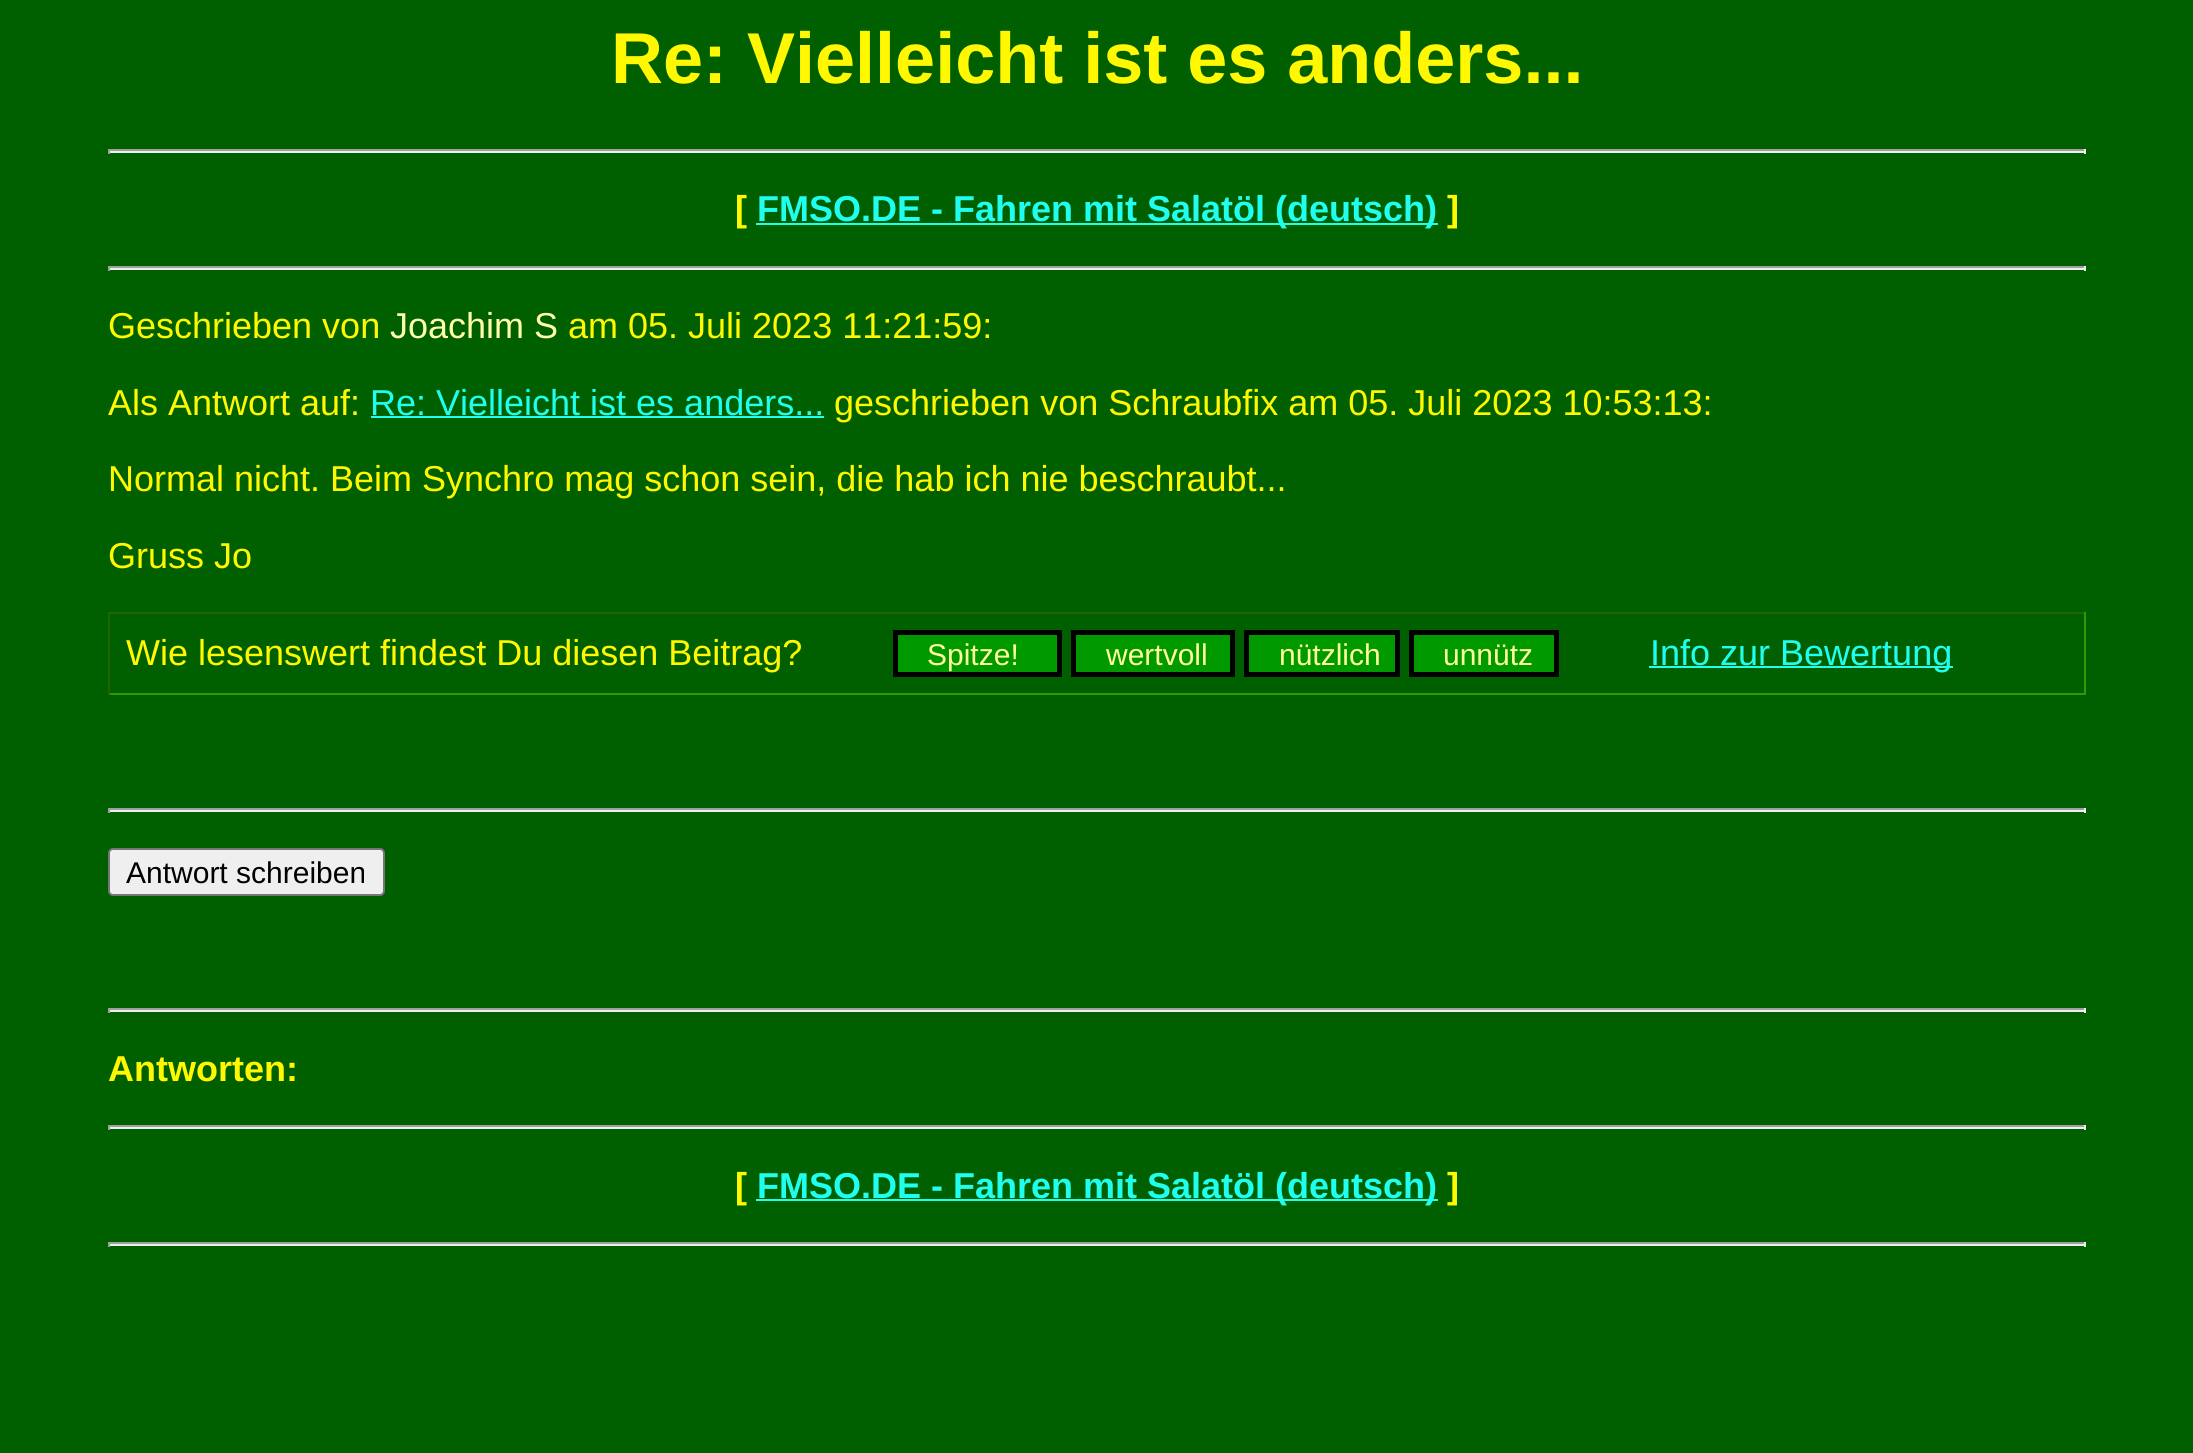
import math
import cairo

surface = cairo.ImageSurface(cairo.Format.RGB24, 2193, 1453)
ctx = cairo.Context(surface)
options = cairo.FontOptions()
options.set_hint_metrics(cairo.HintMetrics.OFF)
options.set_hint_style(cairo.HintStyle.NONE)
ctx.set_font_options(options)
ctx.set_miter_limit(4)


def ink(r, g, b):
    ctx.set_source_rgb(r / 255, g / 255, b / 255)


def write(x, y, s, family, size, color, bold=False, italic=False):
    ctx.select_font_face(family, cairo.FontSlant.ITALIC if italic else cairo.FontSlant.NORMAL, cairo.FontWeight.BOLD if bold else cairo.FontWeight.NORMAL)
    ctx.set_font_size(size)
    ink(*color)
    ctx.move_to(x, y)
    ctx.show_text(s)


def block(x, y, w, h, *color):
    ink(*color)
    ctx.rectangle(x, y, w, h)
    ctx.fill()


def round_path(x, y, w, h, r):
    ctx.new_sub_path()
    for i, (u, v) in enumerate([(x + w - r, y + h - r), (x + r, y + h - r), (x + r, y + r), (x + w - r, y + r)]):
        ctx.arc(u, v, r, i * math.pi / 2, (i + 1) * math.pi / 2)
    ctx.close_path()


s1 = dict(family="Liberation Sans", size=72, color=(255, 248, 0), bold=True)
s2 = dict(family="Liberation Sans", size=36, color=(255, 248, 0), bold=True)
s3 = dict(family="Liberation Sans", size=36, color=(32, 255, 239), bold=True)
s4 = dict(family="Liberation Sans", size=36, color=(255, 248, 0))
s5 = dict(family="Liberation Sans", size=36, color=(255, 255, 170))
s6 = dict(family="Liberation Sans", size=36, color=(32, 255, 239))
s7 = dict(family="Liberation Sans", size=30, color=(255, 255, 153))
s8 = dict(family="Liberation Sans", size=30, color=(0, 0, 0))

ink(0, 96, 0)
ctx.paint()
write(611, 83, "Re: Vielleicht ist es anders...", **s1)
block(108, 149, 1978, 2, 159, 159, 159)
block(2084, 149, 2, 5, 238, 238, 238)
block(108, 151, 1978, 2, 238, 238, 238)
block(108, 149, 2, 5, 159, 159, 159)
write(735, 221, "[", **s2)
block(756, 223, 682, 2, 32, 255, 239)
write(757, 221, "FMSO.DE - Fahren mit Salatöl (deutsch)", **s3)
write(1447, 221, "]", **s2)
block(108, 266, 1978, 2, 159, 159, 159)
block(2084, 266, 2, 5, 238, 238, 238)
block(108, 268, 1978, 2, 238, 238, 238)
block(108, 266, 2, 5, 159, 159, 159)
write(108, 338, "Geschrieben von", **s4)
write(390, 338, "Joachim S", **s5)
write(568, 338, "am 05. Juli 2023 11:21:59:", **s4)
write(108, 415, "Als Antwort auf:", **s4)
write(370, 415, "Re: Vielleicht ist es anders...", **s6)
block(371, 416, 453, 2, 32, 255, 239)
write(834, 415, "geschrieben von Schraubfix am 05. Juli 2023 10:53:13:", **s4)
write(108, 491, "Normal nicht. Beim Synchro mag schon sein, die hab ich nie beschraubt...", **s4)
write(108, 568, "Gruss Jo", **s4)
block(108, 612, 1978, 2, 34, 102, 0)
block(2084, 612, 2, 83, 51, 153, 0)
block(108, 693, 1978, 2, 51, 153, 0)
block(108, 612, 2, 83, 34, 102, 0)
write(126, 665, "Wie lesenswert findest Du diesen Beitrag?", **s4)
ink(0, 153, 0)
ctx.rectangle(895.5, 632.5, 164, 42)
ctx.fill_preserve()
ink(0, 0, 0)
ctx.set_line_width(5)
ctx.stroke()
write(927, 665, "Spitze!", **s7)
ink(0, 153, 0)
ctx.rectangle(1073.5, 632.5, 159, 42)
ctx.fill_preserve()
ink(0, 0, 0)
ctx.stroke()
write(1106, 665, "wertvoll", **s7)
ink(0, 153, 0)
ctx.rectangle(1246.5, 632.5, 151, 42)
ctx.fill_preserve()
ink(0, 0, 0)
ctx.stroke()
write(1279, 665, "nützlich", **s7)
ink(0, 153, 0)
ctx.rectangle(1411.5, 632.5, 145, 42)
ctx.fill_preserve()
ink(0, 0, 0)
ctx.stroke()
write(1443, 665, "unnütz", **s7)
block(1649, 666, 304, 2, 32, 255, 239)
write(1650, 665, "Info zur Bewertung", **s6)
block(108, 808, 1978, 2, 159, 159, 159)
block(2084, 808, 2, 5, 238, 238, 238)
block(108, 810, 1978, 2, 238, 238, 238)
block(108, 808, 2, 5, 159, 159, 159)
ink(239, 239, 239)
round_path(109, 849, 275, 46, 4)
ctx.fill_preserve()
ink(118, 118, 118)
ctx.set_line_width(2)
ctx.stroke()
write(126, 883, "Antwort schreiben", **s8)
block(108, 1008, 1978, 2, 159, 159, 159)
block(2084, 1008, 2, 5, 238, 238, 238)
block(108, 1010, 1978, 2, 238, 238, 238)
block(108, 1008, 2, 5, 159, 159, 159)
write(108, 1081, "Antworten:", **s2)
block(108, 1125, 1978, 2, 159, 159, 159)
block(2084, 1125, 2, 5, 238, 238, 238)
block(108, 1127, 1978, 2, 238, 238, 238)
block(108, 1125, 2, 5, 159, 159, 159)
write(735, 1198, "[", **s2)
block(756, 1199, 682, 2, 32, 255, 239)
write(757, 1198, "FMSO.DE - Fahren mit Salatöl (deutsch)", **s3)
write(1447, 1198, "]", **s2)
block(108, 1242, 1978, 2, 159, 159, 159)
block(2084, 1242, 2, 5, 238, 238, 238)
block(108, 1244, 1978, 2, 238, 238, 238)
block(108, 1242, 2, 5, 159, 159, 159)
surface.write_to_png("screenshot.png")
